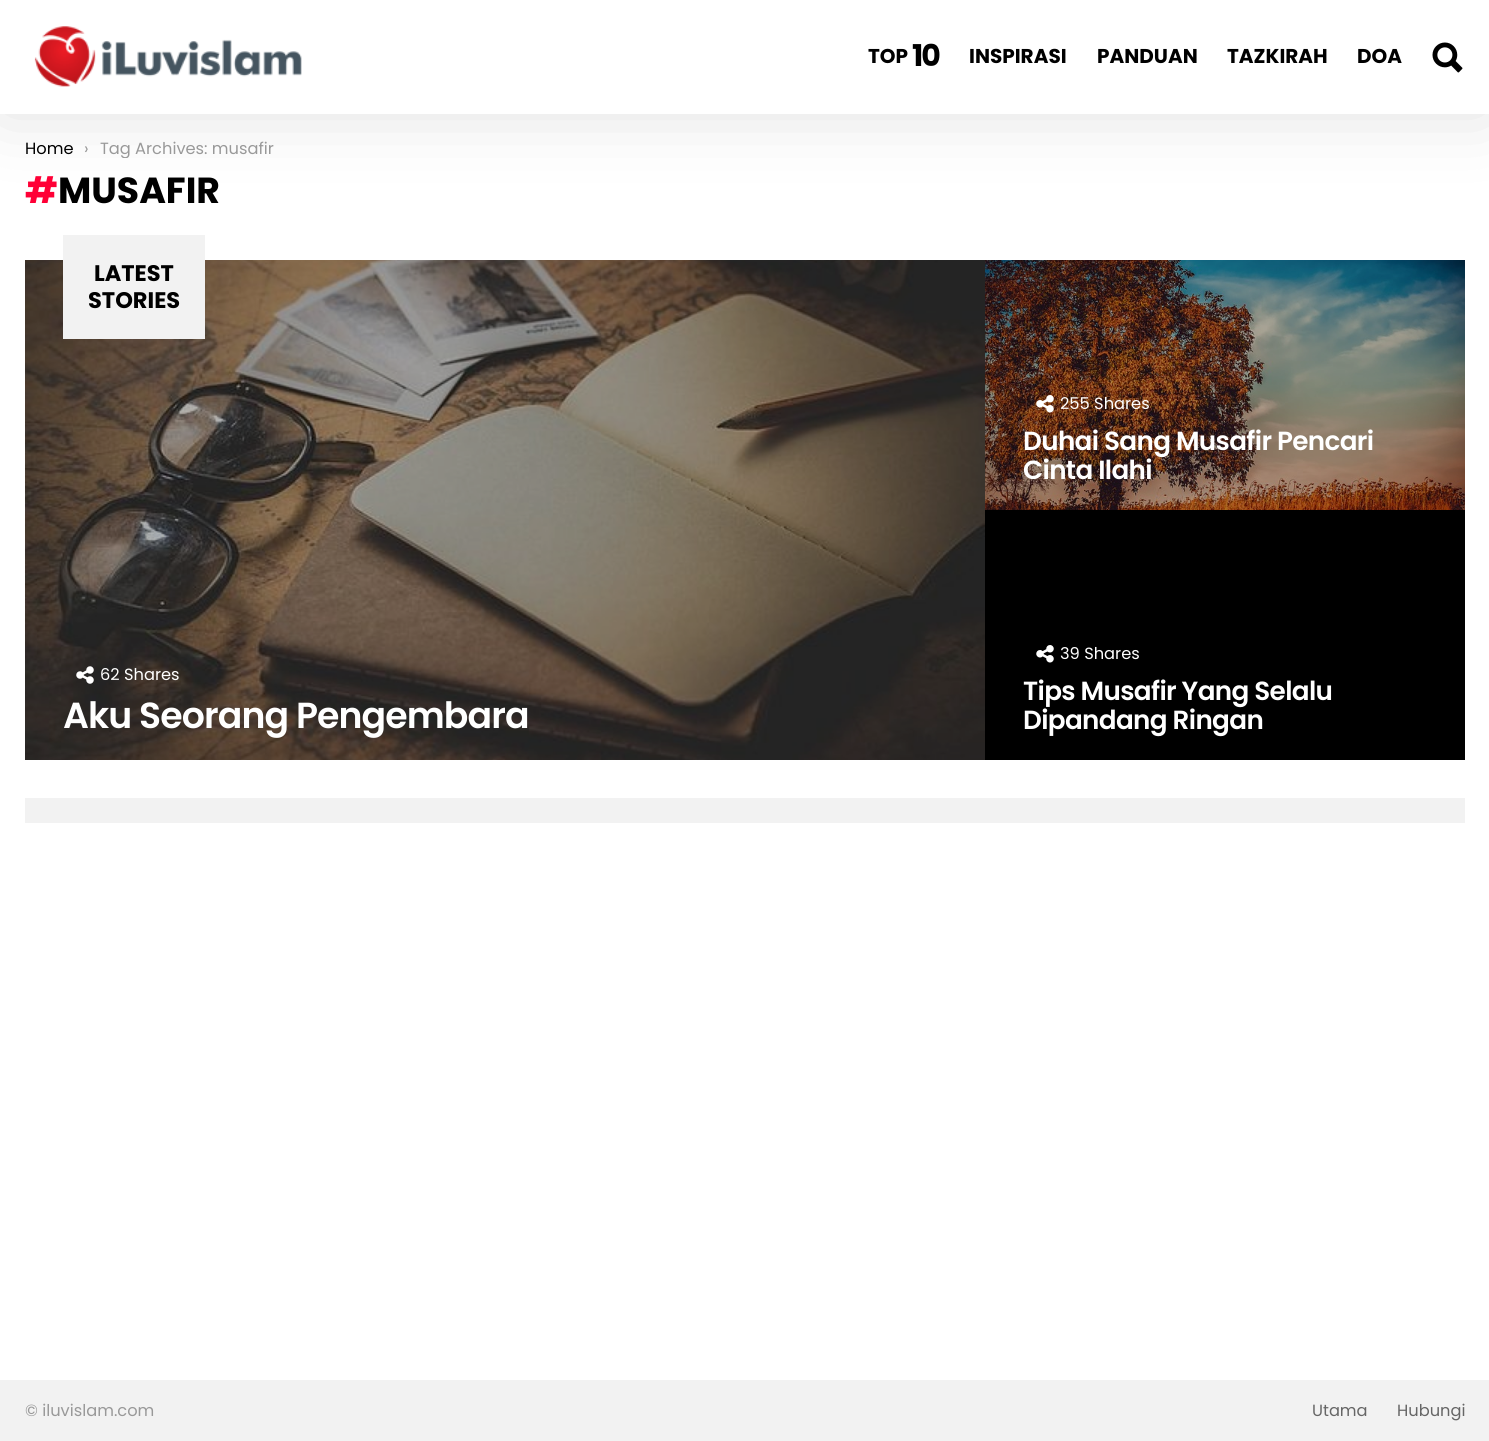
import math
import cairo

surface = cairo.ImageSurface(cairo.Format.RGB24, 1489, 1441)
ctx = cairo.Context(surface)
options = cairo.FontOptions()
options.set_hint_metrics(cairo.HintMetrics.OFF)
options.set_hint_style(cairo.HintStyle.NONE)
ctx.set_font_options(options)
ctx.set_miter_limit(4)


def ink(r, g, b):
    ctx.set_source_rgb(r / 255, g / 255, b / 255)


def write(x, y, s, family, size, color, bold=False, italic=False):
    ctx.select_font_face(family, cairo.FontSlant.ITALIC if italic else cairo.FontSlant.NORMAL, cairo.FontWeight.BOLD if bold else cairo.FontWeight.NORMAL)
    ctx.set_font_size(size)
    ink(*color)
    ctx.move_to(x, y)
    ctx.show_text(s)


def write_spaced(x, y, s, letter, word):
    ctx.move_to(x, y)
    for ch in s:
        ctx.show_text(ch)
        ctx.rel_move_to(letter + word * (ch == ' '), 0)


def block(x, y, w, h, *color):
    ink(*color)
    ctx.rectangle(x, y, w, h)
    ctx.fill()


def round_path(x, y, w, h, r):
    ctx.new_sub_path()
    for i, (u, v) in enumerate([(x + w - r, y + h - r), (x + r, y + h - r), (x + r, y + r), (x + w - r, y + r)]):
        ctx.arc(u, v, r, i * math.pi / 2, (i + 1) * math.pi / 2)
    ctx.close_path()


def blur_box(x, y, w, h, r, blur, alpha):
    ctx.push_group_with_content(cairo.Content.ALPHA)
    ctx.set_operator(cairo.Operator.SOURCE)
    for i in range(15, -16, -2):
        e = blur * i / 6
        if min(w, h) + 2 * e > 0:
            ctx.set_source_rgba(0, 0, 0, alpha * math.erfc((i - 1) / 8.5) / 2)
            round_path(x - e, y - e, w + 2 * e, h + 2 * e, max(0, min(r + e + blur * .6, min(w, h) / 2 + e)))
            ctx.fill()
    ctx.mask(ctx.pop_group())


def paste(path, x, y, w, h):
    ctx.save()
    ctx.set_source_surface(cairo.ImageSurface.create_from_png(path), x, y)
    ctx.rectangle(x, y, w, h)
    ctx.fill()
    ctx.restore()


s1 = dict(family="Poppins", size=20, color=(0, 0, 0), bold=True)
s2 = dict(family="Poppins", size=16.25, color=(0, 0, 0))
s3 = dict(family="Poppins", size=16.25, color=(153, 153, 153))
s4 = dict(family="Poppins", size=36.25, color=(255, 0, 54), bold=True)
s5 = dict(family="Poppins", size=36.25, color=(0, 0, 0), bold=True)
s6 = dict(family="Poppins", size=22.5, color=(0, 0, 0), bold=True)
s7 = dict(family="Poppins", size=16.25, color=(255, 255, 255))
s8 = dict(family="Poppins", size=16.25, color=(102, 102, 102))

ink(255, 255, 255)
ctx.paint()
ink(0, 0, 0)
blur_box(0, 0, 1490, 114, 0, 37.5, 0.12)
block(0, 0, 1489, 114, 255, 255, 255)
paste("pic1.png", 34, 26, 268, 61)
write(868, 63, "TOP", **s1)
ctx.set_font_size(30)
write_spaced(912, 66, "10", -2, 0)
write(969, 63, "INSPIRASI", **s1)
write(1097, 63, "PANDUAN", **s1)
write(1227, 63, "TAZKIRAH", **s1)
write(1357, 63, "DOA", **s1)
paste("pic2.png", 1432, 42, 31, 31)
write(25, 154, "Home", **s2)
write(84, 154, "›", **s3)
ctx.save()
ctx.rectangle(84, 139, 190, 19)
ctx.clip()
write(100, 154, "Tag Archives: musafir", **s3)
ctx.restore()
write(25, 203, "#", **s4)
write(58, 203, "MUSAFIR", **s5)
paste("pic5.png", 25, 260, 960, 500)
block(63, 235, 142, 104, 242, 242, 242)
write(94, 281, "LATEST", **s6)
write(88, 308, "STORIES", **s6)
paste("pic3.png", 985, 260, 480, 250)
paste("pic4.png", 1036, 395, 18, 18)
write(1060, 409, "255 Shares", **s7)
ctx.select_font_face("Poppins SemiBold")
ctx.set_font_size(26.25)
write_spaced(1023, 450, "Duhai Sang Musafir Pencari", -0.65, 0)
write_spaced(1023, 479, "Cinta Ilahi", -0.65, 0)
paste("pic6.png", 76, 666, 18, 18)
write(100, 680, "62 Shares", **s7)
ctx.select_font_face("Poppins SemiBold")
ctx.set_font_size(36.25)
write_spaced(63, 728, "Aku Seorang Pengembara", -0.9, 0)
block(985, 510, 480, 250, 0, 0, 0)
paste("pic7.png", 1036, 645, 18, 18)
write(1060, 659, "39 Shares", **s7)
ctx.select_font_face("Poppins SemiBold")
ctx.set_font_size(26.25)
write_spaced(1023, 700, "Tips Musafir Yang Selalu", -0.65, 0)
write_spaced(1023, 729, "Dipandang Ringan", -0.65, 0)
block(25, 798, 1440, 25, 242, 242, 242)
block(0, 1380, 1489, 61, 242, 242, 242)
write(25, 1416, "© iluvislam.com", **s3)
write(1312, 1416, "Utama", **s8)
write(1397, 1416, "Hubungi", **s8)
surface.write_to_png("screenshot.png")
